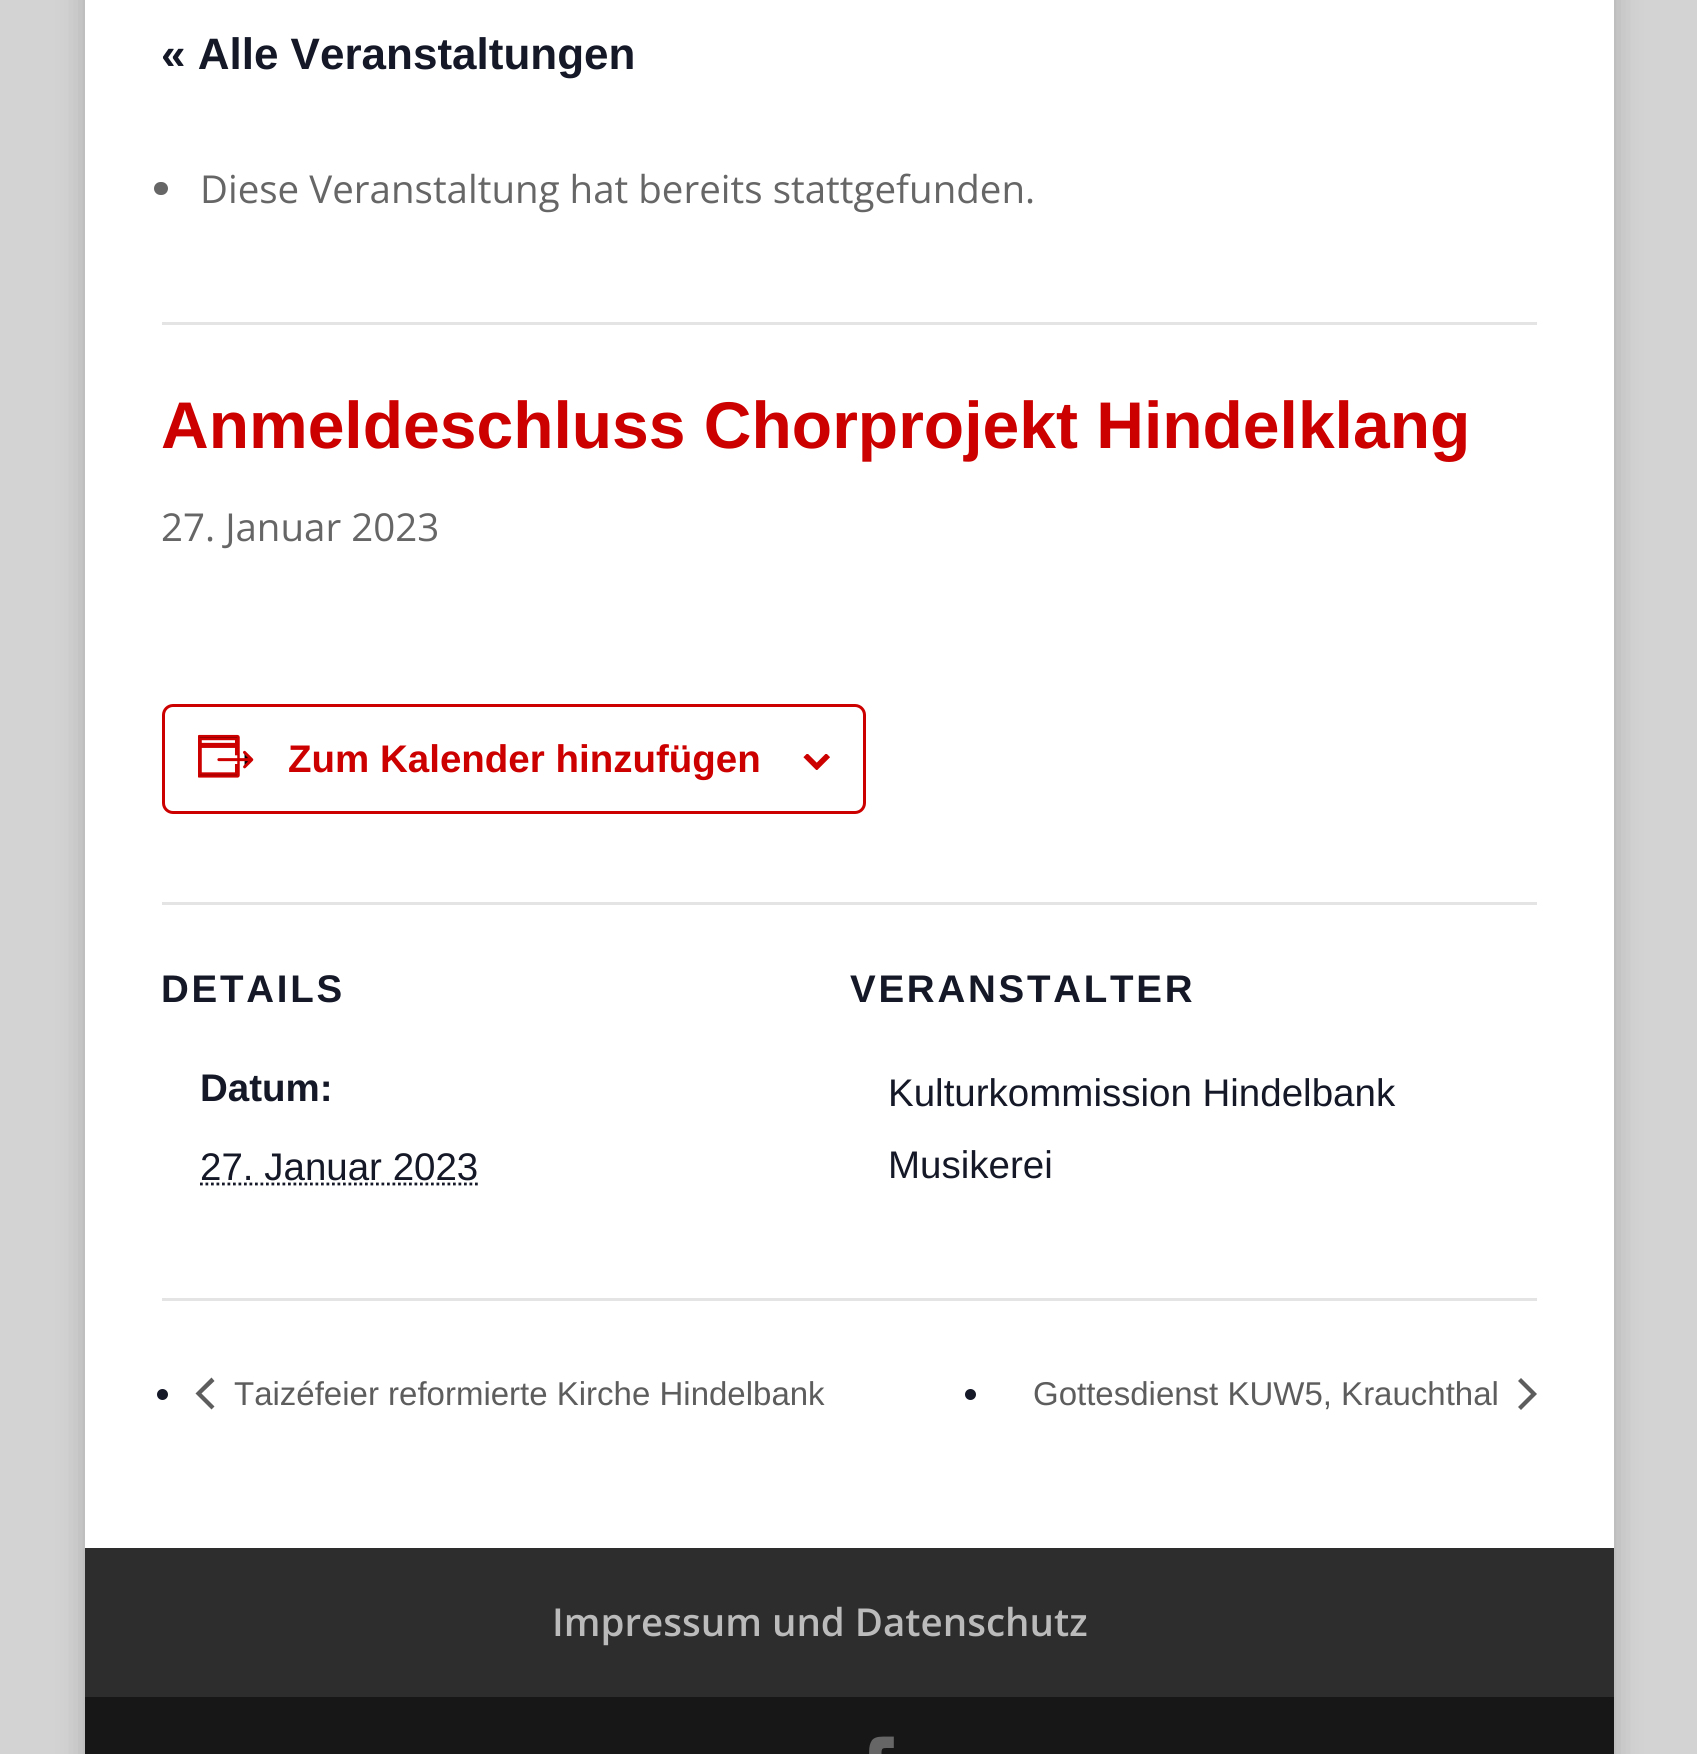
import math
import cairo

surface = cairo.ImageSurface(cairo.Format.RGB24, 1697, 1754)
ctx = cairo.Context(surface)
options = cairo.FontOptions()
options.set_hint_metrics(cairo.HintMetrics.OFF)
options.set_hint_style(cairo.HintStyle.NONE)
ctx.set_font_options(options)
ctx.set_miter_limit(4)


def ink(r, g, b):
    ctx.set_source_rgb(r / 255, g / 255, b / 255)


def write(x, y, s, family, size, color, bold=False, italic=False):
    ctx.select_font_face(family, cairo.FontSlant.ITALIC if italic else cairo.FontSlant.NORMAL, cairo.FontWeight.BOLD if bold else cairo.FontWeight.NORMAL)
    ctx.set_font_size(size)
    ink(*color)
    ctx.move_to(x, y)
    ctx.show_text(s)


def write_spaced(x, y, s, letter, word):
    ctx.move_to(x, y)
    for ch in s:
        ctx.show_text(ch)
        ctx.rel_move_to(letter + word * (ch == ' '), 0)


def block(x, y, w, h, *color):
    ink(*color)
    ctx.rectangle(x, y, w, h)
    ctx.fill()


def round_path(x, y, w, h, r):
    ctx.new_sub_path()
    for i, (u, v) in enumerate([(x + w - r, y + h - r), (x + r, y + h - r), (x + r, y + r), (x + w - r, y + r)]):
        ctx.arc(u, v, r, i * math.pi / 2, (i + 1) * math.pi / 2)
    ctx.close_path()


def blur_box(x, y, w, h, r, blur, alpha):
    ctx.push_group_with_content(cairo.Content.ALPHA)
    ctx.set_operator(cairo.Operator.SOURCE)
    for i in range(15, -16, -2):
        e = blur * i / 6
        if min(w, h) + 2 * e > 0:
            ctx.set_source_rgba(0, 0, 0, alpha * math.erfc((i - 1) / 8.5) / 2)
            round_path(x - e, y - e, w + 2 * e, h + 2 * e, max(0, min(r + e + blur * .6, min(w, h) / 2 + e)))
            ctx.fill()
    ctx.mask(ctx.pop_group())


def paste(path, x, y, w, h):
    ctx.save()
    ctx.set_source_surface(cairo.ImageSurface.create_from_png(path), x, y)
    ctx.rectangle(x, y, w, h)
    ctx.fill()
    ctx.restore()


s1 = dict(family="Liberation Sans", size=44, color=(20, 24, 39), bold=True)
s2 = dict(family="Open Sans", size=38.5, color=(102, 102, 102))
s3 = dict(family="Liberation Sans", size=66, color=(205, 0, 0), bold=True)
s4 = dict(family="Liberation Sans", size=38.5, color=(205, 0, 0), bold=True)
s5 = dict(family="Liberation Sans", size=38.5, color=(20, 24, 39), bold=True)
s6 = dict(family="Liberation Sans", size=38.5, color=(20, 24, 39))
s7 = dict(family="Liberation Sans", size=33, color=(93, 93, 93))
s8 = dict(family="Open Sans SemiBold", size=38.5, color=(187, 187, 187))

ink(211, 211, 211)
ctx.paint()
ink(0, 0, 0)
blur_box(85, -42, 1529, 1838, 0, 14, 0.2)
block(85, 0, 1529, 1548, 255, 255, 255)
write(161, 69, "« Alle Veranstaltungen", **s1)
block(162, 322, 1375, 3, 228, 228, 228)
ink(102, 102, 102)
round_path(154, 182, 14, 13, 6.5)
ctx.fill()
write(200, 203, "Diese Veranstaltung hat bereits stattgefunden.", **s2)
write(161, 448, "Anmeldeschluss Chorprojekt Hindelklang", **s3)
write(161, 541, "27. Januar 2023", **s2)
round_path(163.5, 705.5, 701, 107, 9.5)
ink(205, 0, 0)
ctx.set_line_width(3)
ctx.stroke()
paste("pic1.png", 198, 734, 56, 44)
write(288, 772, "Zum Kalender hinzufügen", **s4)
paste("pic2.png", 803, 754, 27, 16)
block(162, 902, 1375, 3, 228, 228, 228)
ink(20, 24, 39)
write_spaced(161, 1002, "DETAILS", 2.75, 0)
write(200, 1101, "Datum:", **s5)
write(200, 1180, "27. Januar 2023", **s6)
ctx.new_path()
ctx.move_to(200, 1184)
ctx.line_to(478.5, 1184)
ctx.set_line_width(2.8)
ctx.set_dash([2.75, 2.75])
ctx.stroke()
ctx.select_font_face("Liberation Sans", cairo.FontSlant.NORMAL, cairo.FontWeight.BOLD)
write_spaced(850, 1002, "VERANSTALTER", 2.75, 0)
write(888, 1106, "Kulturkommission Hindelbank", **s6)
write(888, 1178, "Musikerei", **s6)
block(162, 1298, 1375, 3, 228, 228, 228)
ink(20, 24, 39)
ctx.new_path()
ctx.arc(162.5, 1394.5, 5.5, 0, 2 * math.pi)
ctx.fill()
ink(93, 93, 93)
ctx.new_path()
ctx.move_to(214.5, 1406.5)
ctx.line_to(211.5, 1409.5)
ctx.line_to(195.5, 1393.5)
ctx.line_to(211.5, 1377.5)
ctx.line_to(214.5, 1381)
ctx.line_to(201.5, 1393.5)
ctx.close_path()
ctx.fill()
write(234, 1405, "Taizéfeier reformierte Kirche Hindelbank", **s7)
ink(20, 24, 39)
ctx.new_path()
ctx.arc(970.5, 1394.5, 5.5, 0, 2 * math.pi)
ctx.fill()
write(1033, 1405, "Gottesdienst KUW5, Krauchthal", **s7)
ctx.new_path()
ctx.move_to(1518, 1381)
ctx.line_to(1521, 1378)
ctx.line_to(1537, 1394)
ctx.line_to(1521, 1410)
ctx.line_to(1518, 1407)
ctx.line_to(1531, 1394)
ctx.close_path()
ctx.fill()
block(85, 1548, 1529, 149, 45, 45, 45)
write(552, 1636, "Impressum und Datenschutz", **s8)
block(85, 1697, 1529, 57, 23, 23, 23)
paste("pic3.png", 869, 1736, 25, 18)
surface.write_to_png("screenshot.png")
